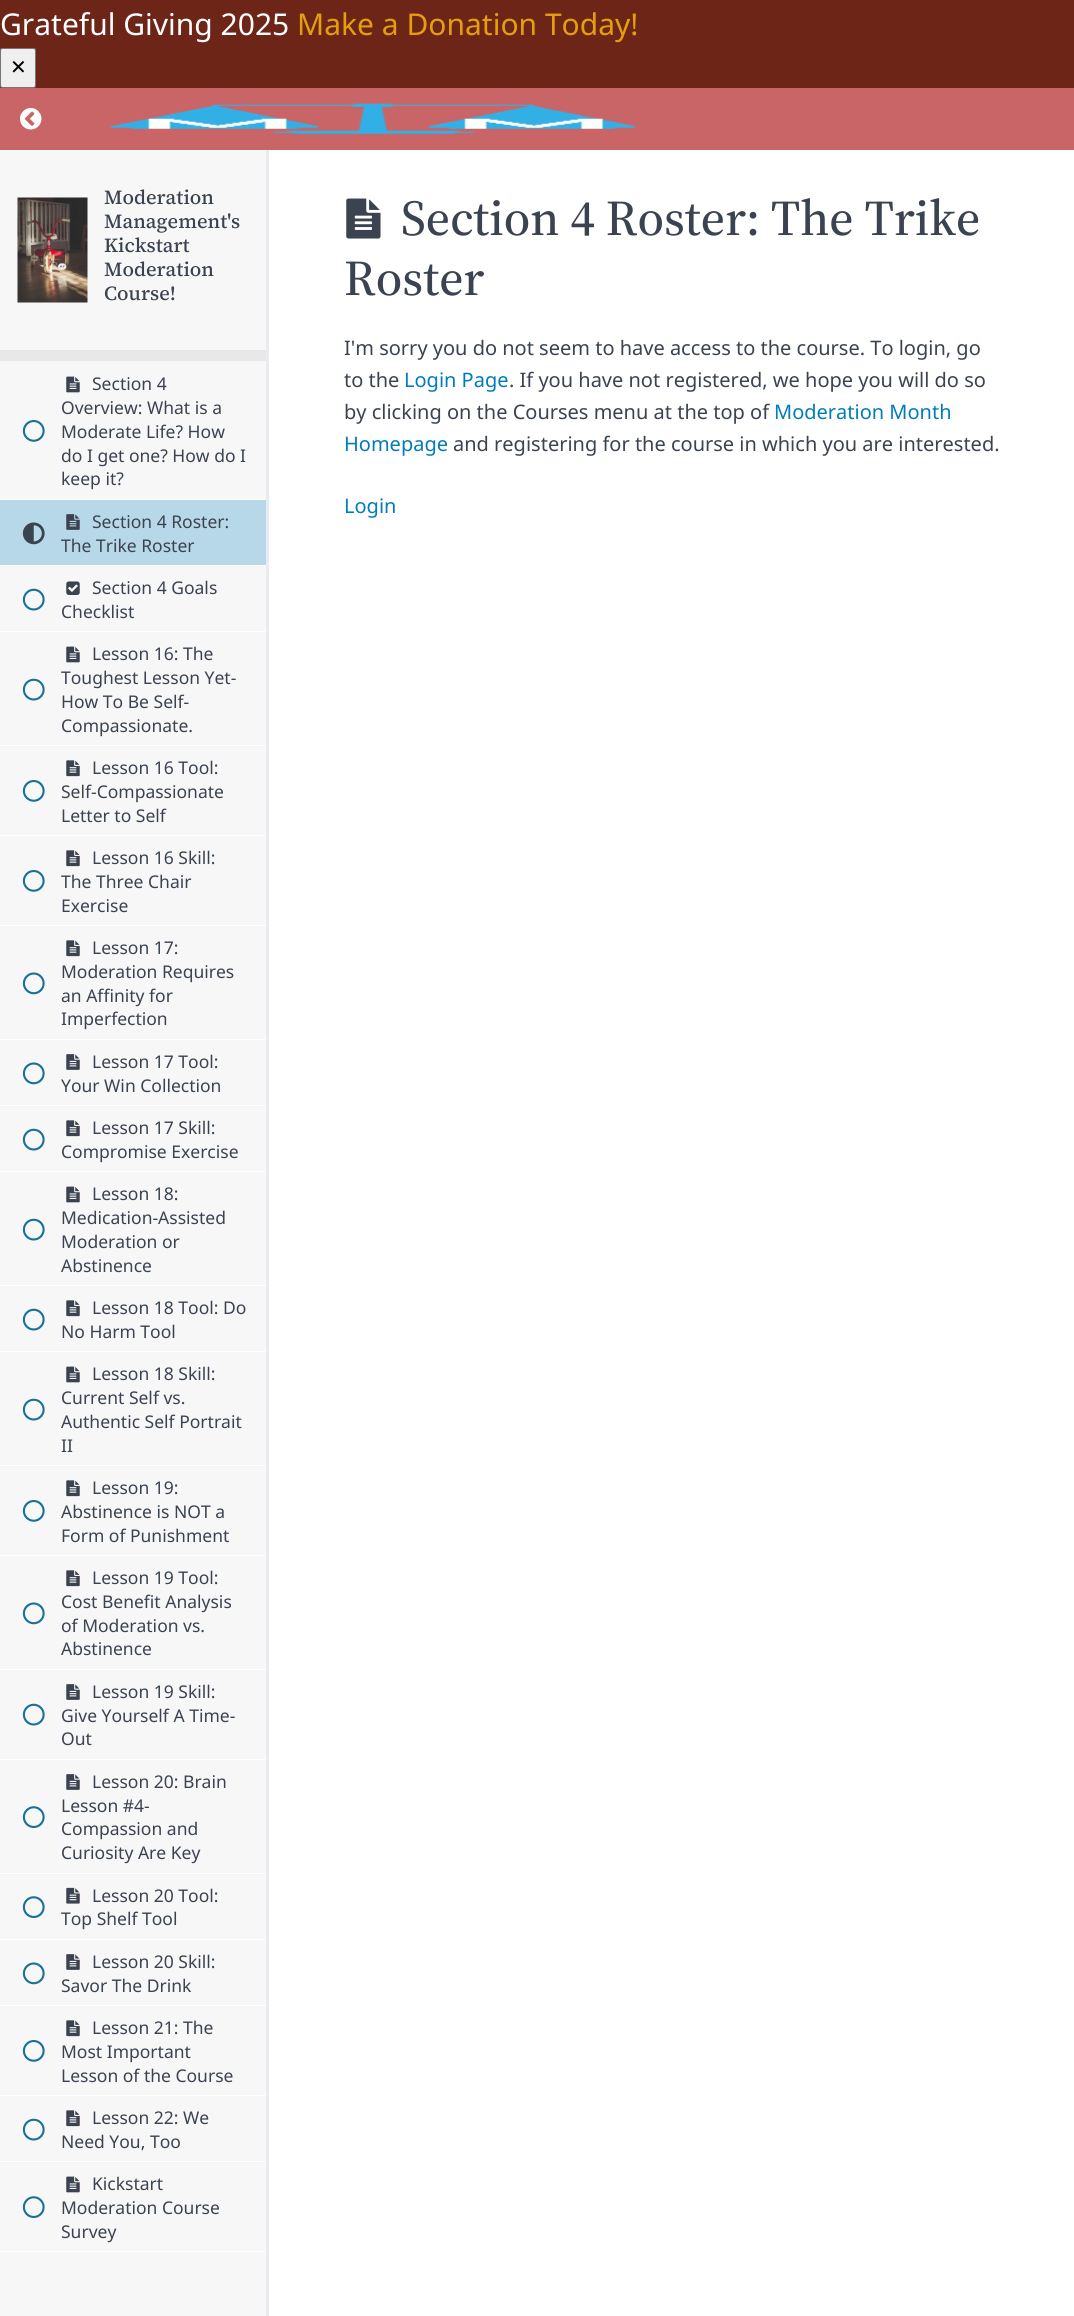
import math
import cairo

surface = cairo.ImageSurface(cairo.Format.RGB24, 1074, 2316)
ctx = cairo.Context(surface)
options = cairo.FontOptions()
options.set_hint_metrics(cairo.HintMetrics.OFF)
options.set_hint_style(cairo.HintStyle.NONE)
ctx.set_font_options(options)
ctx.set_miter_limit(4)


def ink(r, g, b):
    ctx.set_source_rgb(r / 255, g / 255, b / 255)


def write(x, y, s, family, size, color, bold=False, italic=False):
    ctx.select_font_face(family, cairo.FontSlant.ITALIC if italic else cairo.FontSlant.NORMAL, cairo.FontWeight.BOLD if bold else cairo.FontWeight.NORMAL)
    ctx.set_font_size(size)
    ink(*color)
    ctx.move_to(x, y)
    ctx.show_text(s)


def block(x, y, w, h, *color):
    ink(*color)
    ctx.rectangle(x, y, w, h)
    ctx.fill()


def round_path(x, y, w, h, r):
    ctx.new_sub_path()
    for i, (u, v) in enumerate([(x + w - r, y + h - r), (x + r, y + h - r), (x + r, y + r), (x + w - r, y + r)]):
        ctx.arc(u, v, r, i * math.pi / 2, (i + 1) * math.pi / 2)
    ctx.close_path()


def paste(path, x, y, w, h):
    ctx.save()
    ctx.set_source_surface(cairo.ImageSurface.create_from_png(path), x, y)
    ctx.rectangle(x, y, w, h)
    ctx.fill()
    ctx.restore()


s1 = dict(family="Noto Sans", size=30, color=(255, 255, 255))
s2 = dict(family="Noto Sans", size=30, color=(228, 159, 12))
s3 = dict(family="DejaVu Sans", size=20, color=(0, 0, 0))
s4 = dict(family="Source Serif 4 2 Medium", size=20, color=(59, 67, 81))
s5 = dict(family="Noto Sans", size=17.5, color=(59, 67, 81))
s6 = dict(family="Source Serif 4 Medium", size=50, color=(59, 67, 81))
s7 = dict(family="Noto Sans", size=20, color=(59, 67, 81))
s8 = dict(family="Noto Sans", size=20, color=(0, 124, 186))

ink(255, 255, 255)
ctx.paint()
block(0, 0, 1074, 88, 109, 37, 24)
write(0, 35, "Grateful Giving 2025", **s1)
write(297, 35, "Make a Donation Today!", **s2)
ink(239, 239, 239)
round_path(0.5, 48.5, 35, 39, 2)
ctx.fill_preserve()
ink(118, 118, 118)
ctx.set_line_width(1)
ctx.stroke()
write(10, 74, "✕", **s3)
block(0, 88, 1074, 62, 201, 101, 103)
paste("pic1.png", 20, 108, 22, 22)
paste("pic2.png", 109, 103, 528, 31)
block(0, 150, 266, 2166, 247, 247, 247)
block(266, 150, 3, 2166, 232, 235, 239)
paste("pic3.png", 17, 197, 71, 106)
write(104, 204, "Moderation", **s4)
write(104, 228, "Management's", **s4)
write(104, 252, "Kickstart", **s4)
write(104, 276, "Moderation", **s4)
write(104, 300, "Course!", **s4)
block(0, 350, 266, 11, 232, 232, 232)
block(0, 499, 266, 1, 255, 255, 255)
paste("pic4.png", 22, 420, 23, 22)
paste("pic5.png", 66, 376, 14, 17)
write(92, 390, "Section 4", **s5)
write(61, 414, "Overview: What is a", **s5)
write(61, 438, "Moderate Life? How", **s5)
write(61, 462, "do I get one? How do I", **s5)
write(61, 485, "keep it?", **s5)
block(0, 500, 266, 65, 183, 216, 232)
block(0, 565, 266, 1, 255, 255, 255)
paste("pic6.png", 22, 522, 23, 23)
paste("pic7.png", 66, 514, 14, 16)
write(92, 528, "Section 4 Roster:", **s5)
write(61, 552, "The Trike Roster", **s5)
block(0, 631, 266, 1, 255, 255, 255)
paste("pic8.png", 22, 588, 23, 23)
paste("pic9.png", 66, 581, 14, 14)
write(92, 594, "Section 4 Goals", **s5)
write(61, 618, "Checklist", **s5)
block(0, 745, 266, 1, 255, 255, 255)
paste("pic8.png", 22, 678, 23, 23)
paste("pic5.png", 66, 646, 14, 17)
write(92, 660, "Lesson 16: The", **s5)
write(61, 684, "Toughest Lesson Yet-", **s5)
write(61, 708, "How To Be Self-", **s5)
write(61, 732, "Compassionate.", **s5)
block(0, 835, 266, 1, 255, 255, 255)
paste("pic4.png", 22, 780, 23, 22)
paste("pic10.png", 66, 760, 14, 17)
write(92, 774, "Lesson 16 Tool:", **s5)
write(61, 798, "Self-Compassionate", **s5)
write(61, 822, "Letter to Self", **s5)
block(0, 925, 266, 1, 255, 255, 255)
paste("pic4.png", 22, 870, 23, 22)
paste("pic10.png", 66, 850, 14, 17)
write(92, 864, "Lesson 16 Skill:", **s5)
write(61, 888, "The Three Chair", **s5)
write(61, 912, "Exercise", **s5)
block(0, 1039, 266, 1, 255, 255, 255)
paste("pic11.png", 22, 972, 23, 23)
paste("pic10.png", 66, 940, 14, 17)
write(92, 954, "Lesson 17:", **s5)
write(61, 978, "Moderation Requires", **s5)
write(61, 1002, "an Affinity for", **s5)
write(61, 1025, "Imperfection", **s5)
block(0, 1105, 266, 1, 255, 255, 255)
paste("pic11.png", 22, 1062, 23, 23)
paste("pic12.png", 66, 1054, 14, 16)
write(92, 1068, "Lesson 17 Tool:", **s5)
write(61, 1092, "Your Win Collection", **s5)
block(0, 1171, 266, 1, 255, 255, 255)
paste("pic8.png", 22, 1128, 23, 23)
paste("pic10.png", 66, 1120, 14, 17)
write(92, 1134, "Lesson 17 Skill:", **s5)
write(61, 1158, "Compromise Exercise", **s5)
block(0, 1285, 266, 1, 255, 255, 255)
paste("pic8.png", 22, 1218, 23, 23)
paste("pic5.png", 66, 1186, 14, 17)
write(92, 1200, "Lesson 18:", **s5)
write(61, 1224, "Medication-Assisted", **s5)
write(61, 1248, "Moderation or", **s5)
write(61, 1272, "Abstinence", **s5)
block(0, 1351, 266, 1, 255, 255, 255)
paste("pic8.png", 22, 1308, 23, 23)
paste("pic10.png", 66, 1300, 14, 17)
write(92, 1314, "Lesson 18 Tool: Do", **s5)
write(61, 1338, "No Harm Tool", **s5)
block(0, 1465, 266, 1, 255, 255, 255)
paste("pic8.png", 22, 1398, 23, 23)
paste("pic5.png", 66, 1366, 14, 17)
write(92, 1380, "Lesson 18 Skill:", **s5)
write(61, 1404, "Current Self vs.", **s5)
write(61, 1428, "Authentic Self Portrait", **s5)
write(61, 1452, "II", **s5)
block(0, 1555, 266, 1, 255, 255, 255)
paste("pic4.png", 22, 1500, 23, 22)
paste("pic10.png", 66, 1480, 14, 17)
write(92, 1494, "Lesson 19:", **s5)
write(61, 1518, "Abstinence is NOT a", **s5)
write(61, 1542, "Form of Punishment", **s5)
block(0, 1669, 266, 1, 255, 255, 255)
paste("pic11.png", 22, 1602, 23, 23)
paste("pic10.png", 66, 1570, 14, 17)
write(92, 1584, "Lesson 19 Tool:", **s5)
write(61, 1608, "Cost Benefit Analysis", **s5)
write(61, 1632, "of Moderation vs.", **s5)
write(61, 1655, "Abstinence", **s5)
block(0, 1759, 266, 1, 255, 255, 255)
paste("pic8.png", 22, 1703, 23, 23)
paste("pic12.png", 66, 1684, 14, 16)
write(92, 1698, "Lesson 19 Skill:", **s5)
write(61, 1722, "Give Yourself A Time-", **s5)
write(61, 1745, "Out", **s5)
block(0, 1873, 266, 1, 255, 255, 255)
paste("pic13.png", 22, 1806, 23, 22)
paste("pic12.png", 66, 1774, 14, 16)
write(92, 1788, "Lesson 20: Brain", **s5)
write(61, 1812, "Lesson #4-", **s5)
write(61, 1835, "Compassion and", **s5)
write(61, 1859, "Curiosity Are Key", **s5)
block(0, 1939, 266, 1, 255, 255, 255)
paste("pic13.png", 22, 1896, 23, 22)
paste("pic14.png", 66, 1887, 14, 17)
write(92, 1902, "Lesson 20 Tool:", **s5)
write(61, 1925, "Top Shelf Tool", **s5)
block(0, 2005, 266, 1, 255, 255, 255)
paste("pic11.png", 22, 1962, 23, 23)
paste("pic12.png", 66, 1954, 14, 16)
write(92, 1968, "Lesson 20 Skill:", **s5)
write(61, 1992, "Savor The Drink", **s5)
block(0, 2095, 266, 1, 255, 255, 255)
paste("pic4.png", 22, 2040, 23, 22)
paste("pic10.png", 66, 2020, 14, 17)
write(92, 2034, "Lesson 21: The", **s5)
write(61, 2058, "Most Important", **s5)
write(61, 2082, "Lesson of the Course", **s5)
block(0, 2161, 266, 1, 255, 255, 255)
paste("pic8.png", 22, 2118, 23, 23)
paste("pic10.png", 66, 2110, 14, 17)
write(92, 2124, "Lesson 22: We", **s5)
write(61, 2148, "Need You, Too", **s5)
block(0, 2251, 266, 1, 255, 255, 255)
paste("pic13.png", 22, 2196, 23, 22)
paste("pic5.png", 66, 2176, 14, 17)
write(92, 2190, "Kickstart", **s5)
write(61, 2214, "Moderation Course", **s5)
write(61, 2238, "Survey", **s5)
paste("pic15.png", 346, 198, 35, 41)
write(401, 235, "Section 4 Roster: The Trike", **s6)
write(344, 295, "Roster", **s6)
write(344, 355, "I'm sorry you do not seem to have access to the course. To login, go", **s7)
write(344, 387, "to the", **s7)
write(404, 387, "Login Page", **s8)
write(509, 387, ". If you have not registered, we hope you will do so", **s7)
write(344, 419, "by clicking on the Courses menu at the top of", **s7)
write(774, 419, "Moderation Month", **s8)
write(344, 451, "Homepage", **s8)
write(453, 451, "and registering for the course in which you are interested.", **s7)
write(344, 513, "Login", **s8)
surface.write_to_png("screenshot.png")
